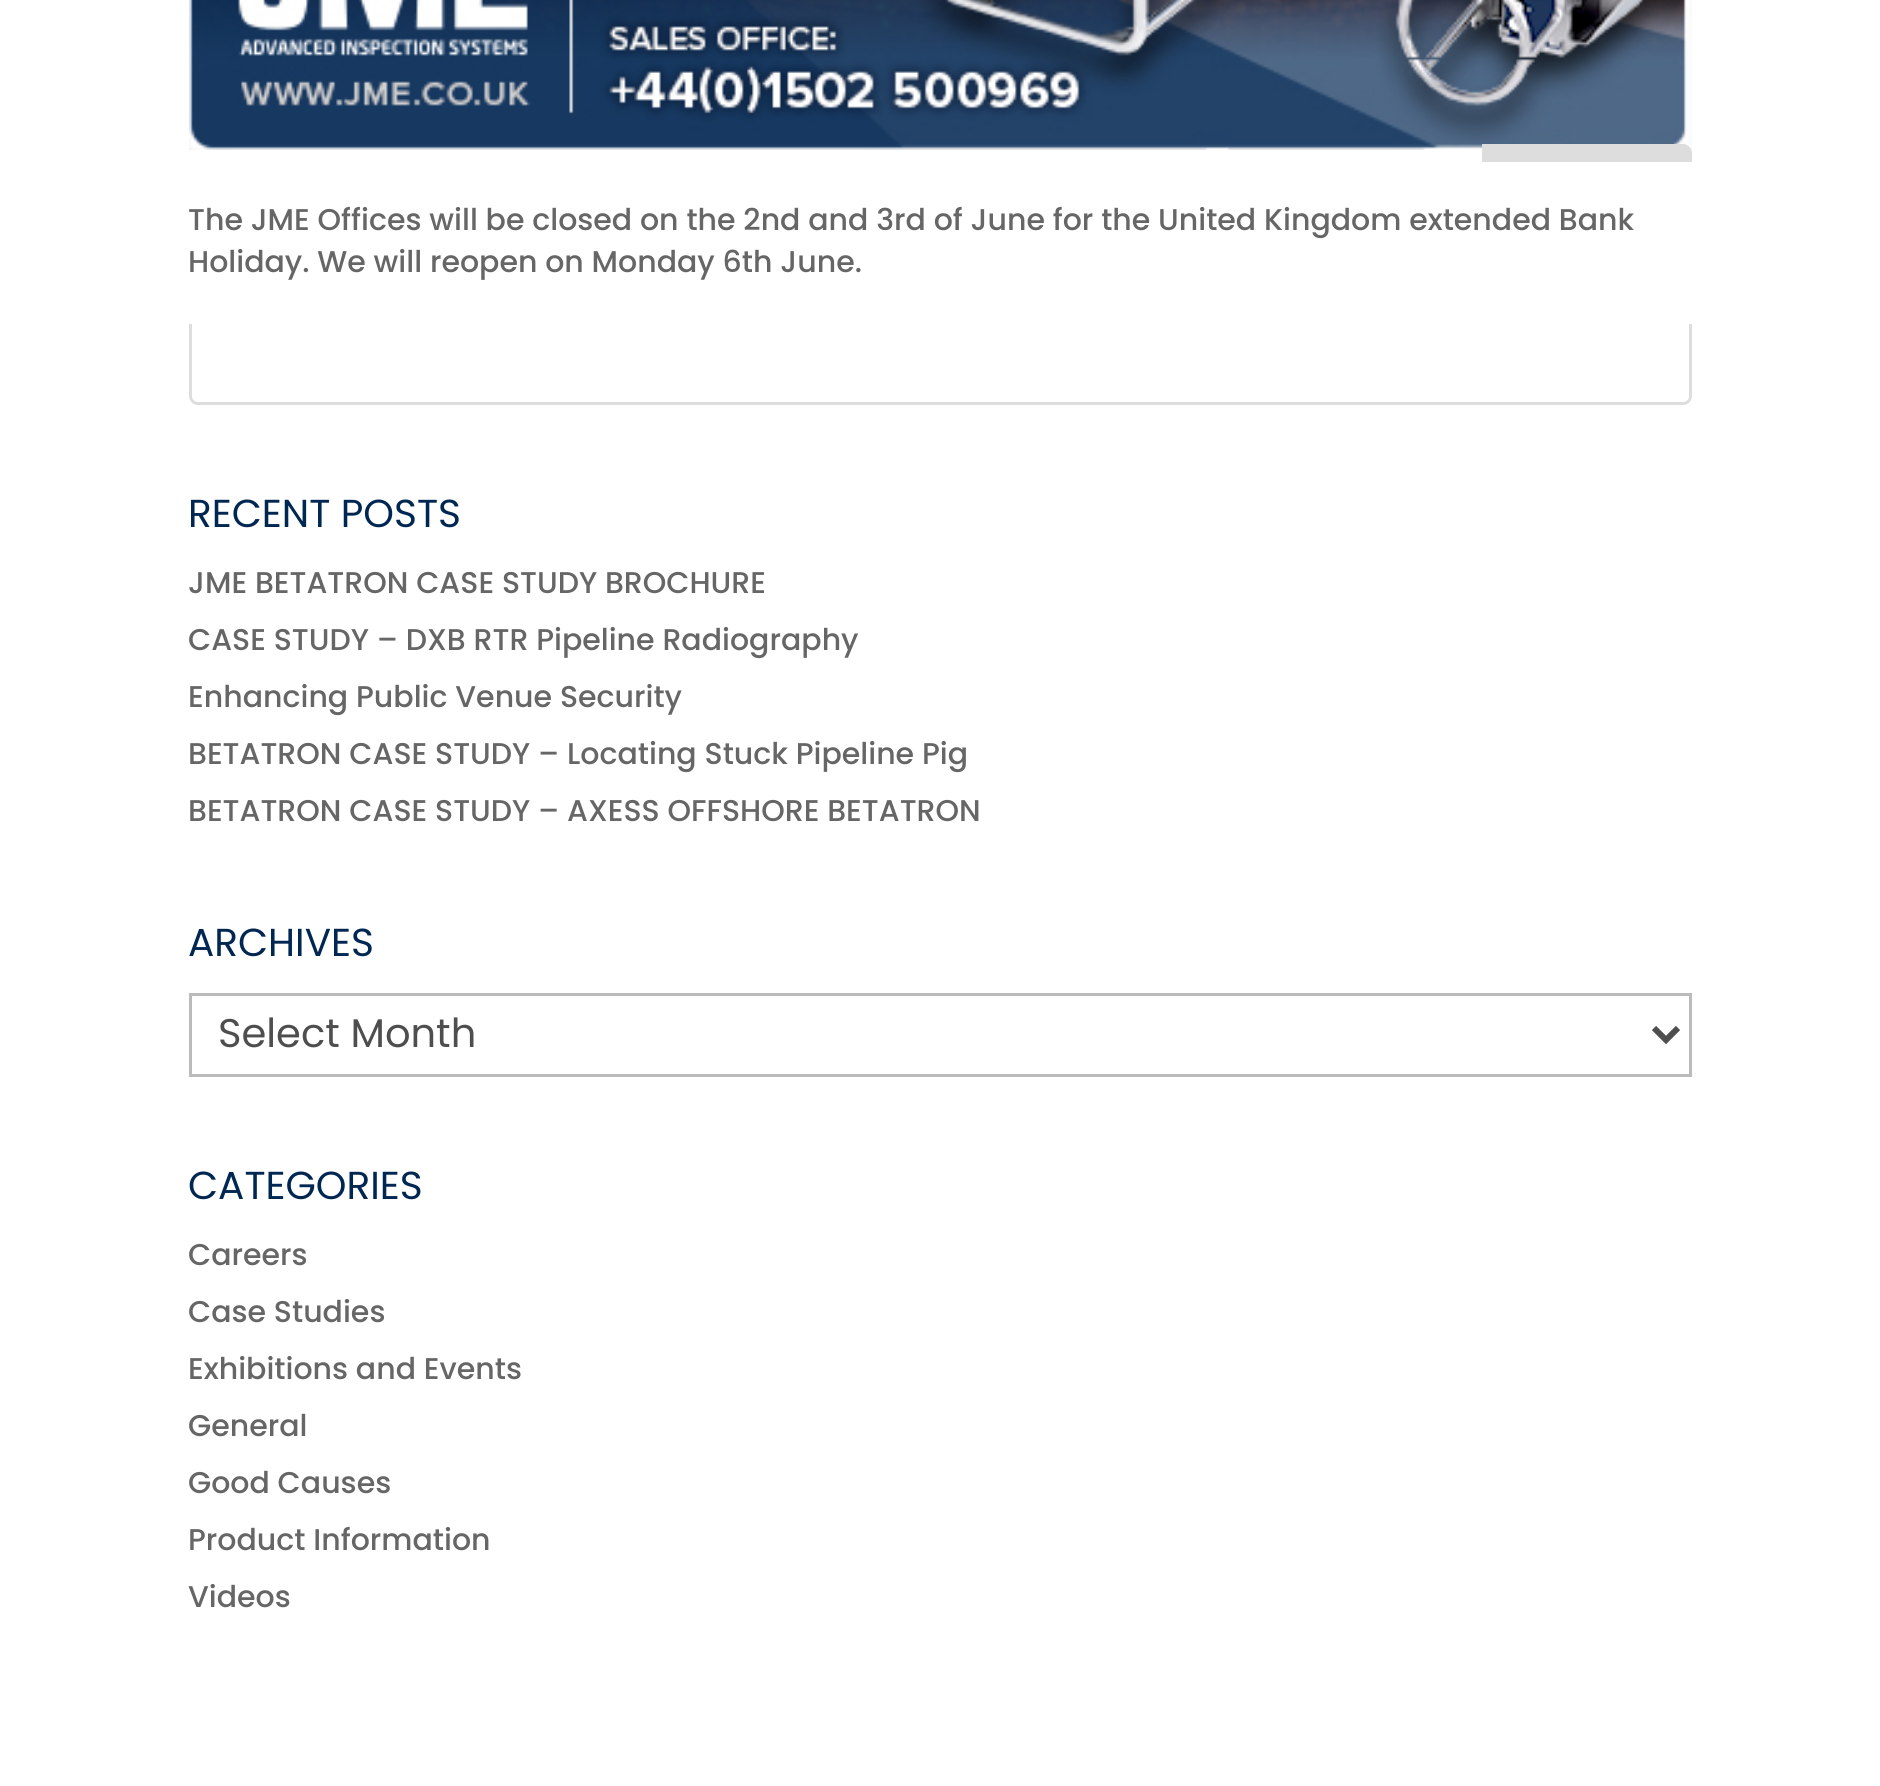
import math
import cairo

surface = cairo.ImageSurface(cairo.Format.RGB24, 1880, 1786)
ctx = cairo.Context(surface)
options = cairo.FontOptions()
options.set_hint_metrics(cairo.HintMetrics.OFF)
options.set_hint_style(cairo.HintStyle.NONE)
ctx.set_font_options(options)
ctx.set_miter_limit(4)


def ink(r, g, b):
    ctx.set_source_rgb(r / 255, g / 255, b / 255)


def write(x, y, s, family, size, color, bold=False, italic=False):
    ctx.select_font_face(family, cairo.FontSlant.ITALIC if italic else cairo.FontSlant.NORMAL, cairo.FontWeight.BOLD if bold else cairo.FontWeight.NORMAL)
    ctx.set_font_size(size)
    ink(*color)
    ctx.move_to(x, y)
    ctx.show_text(s)


def block(x, y, w, h, *color):
    ink(*color)
    ctx.rectangle(x, y, w, h)
    ctx.fill()


def round_path(x, y, w, h, r):
    ctx.new_sub_path()
    for i, (u, v) in enumerate([(x + w - r, y + h - r), (x + r, y + h - r), (x + r, y + r), (x + w - r, y + r)]):
        ctx.arc(u, v, r, i * math.pi / 2, (i + 1) * math.pi / 2)
    ctx.close_path()


def paste(path, x, y, w, h):
    ctx.save()
    ctx.set_source_surface(cairo.ImageSurface.create_from_png(path), x, y)
    ctx.rectangle(x, y, w, h)
    ctx.fill()
    ctx.restore()


s1 = dict(family="Poppins Medium", size=30, color=(102, 102, 102))
s2 = dict(family="Poppins", size=39, color=(0, 38, 82))
s3 = dict(family="Poppins", size=40, color=(78, 78, 78))

ink(255, 255, 255)
ctx.paint()
paste("pic1.png", 189, 0, 1503, 150)
ink(221, 221, 221)
ctx.new_path()
ctx.move_to(1483.5, 145.5)
ctx.line_to(1683, 145.5)
ctx.curve_to(1687, 145.5, 1690.5, 149, 1690.5, 153)
ctx.line_to(1690.5, 255)
ctx.curve_to(1690.5, 259, 1687, 262.5, 1683, 262.5)
ctx.line_to(1483.5, 262.5)
ctx.close_path()
ctx.fill_preserve()
ctx.set_line_width(3)
ctx.stroke()
round_path(190.5, 286.5, 1500, 117, 7.5)
ctx.stroke()
block(189, 162, 1503, 162, 255, 255, 255)
write(188, 230, "The JME Offices will be closed on the 2nd and 3rd of June for the United Kingdom extended Bank", **s1)
write(188, 272, "Holiday. We will reopen on Monday 6th June.", **s1)
write(188, 527, "RECENT POSTS", **s2)
write(188, 593, "JME BETATRON CASE STUDY BROCHURE", **s1)
write(188, 650, "CASE STUDY – DXB RTR Pipeline Radiography", **s1)
write(188, 707, "Enhancing Public Venue Security", **s1)
write(188, 764, "BETATRON CASE STUDY – Locating Stuck Pipeline Pig", **s1)
write(188, 821, "BETATRON CASE STUDY – AXESS OFFSHORE BETATRON", **s1)
write(188, 956, "ARCHIVES", **s2)
ctx.rectangle(190.5, 994.5, 1500, 81)
ink(187, 187, 187)
ctx.stroke()
ctx.new_path()
ctx.move_to(1654, 1028)
ctx.line_to(1666, 1040)
ctx.line_to(1678, 1028)
ink(78, 78, 78)
ctx.set_line_width(6)
ctx.stroke()
write(218, 1047, "Select Month", **s3)
write(188, 1199, "CATEGORIES", **s2)
write(188, 1265, "Careers", **s1)
write(188, 1322, "Case Studies", **s1)
write(188, 1379, "Exhibitions and Events", **s1)
write(188, 1436, "General", **s1)
write(188, 1493, "Good Causes", **s1)
write(188, 1550, "Product Information", **s1)
write(188, 1607, "Videos", **s1)
surface.write_to_png("screenshot.png")
